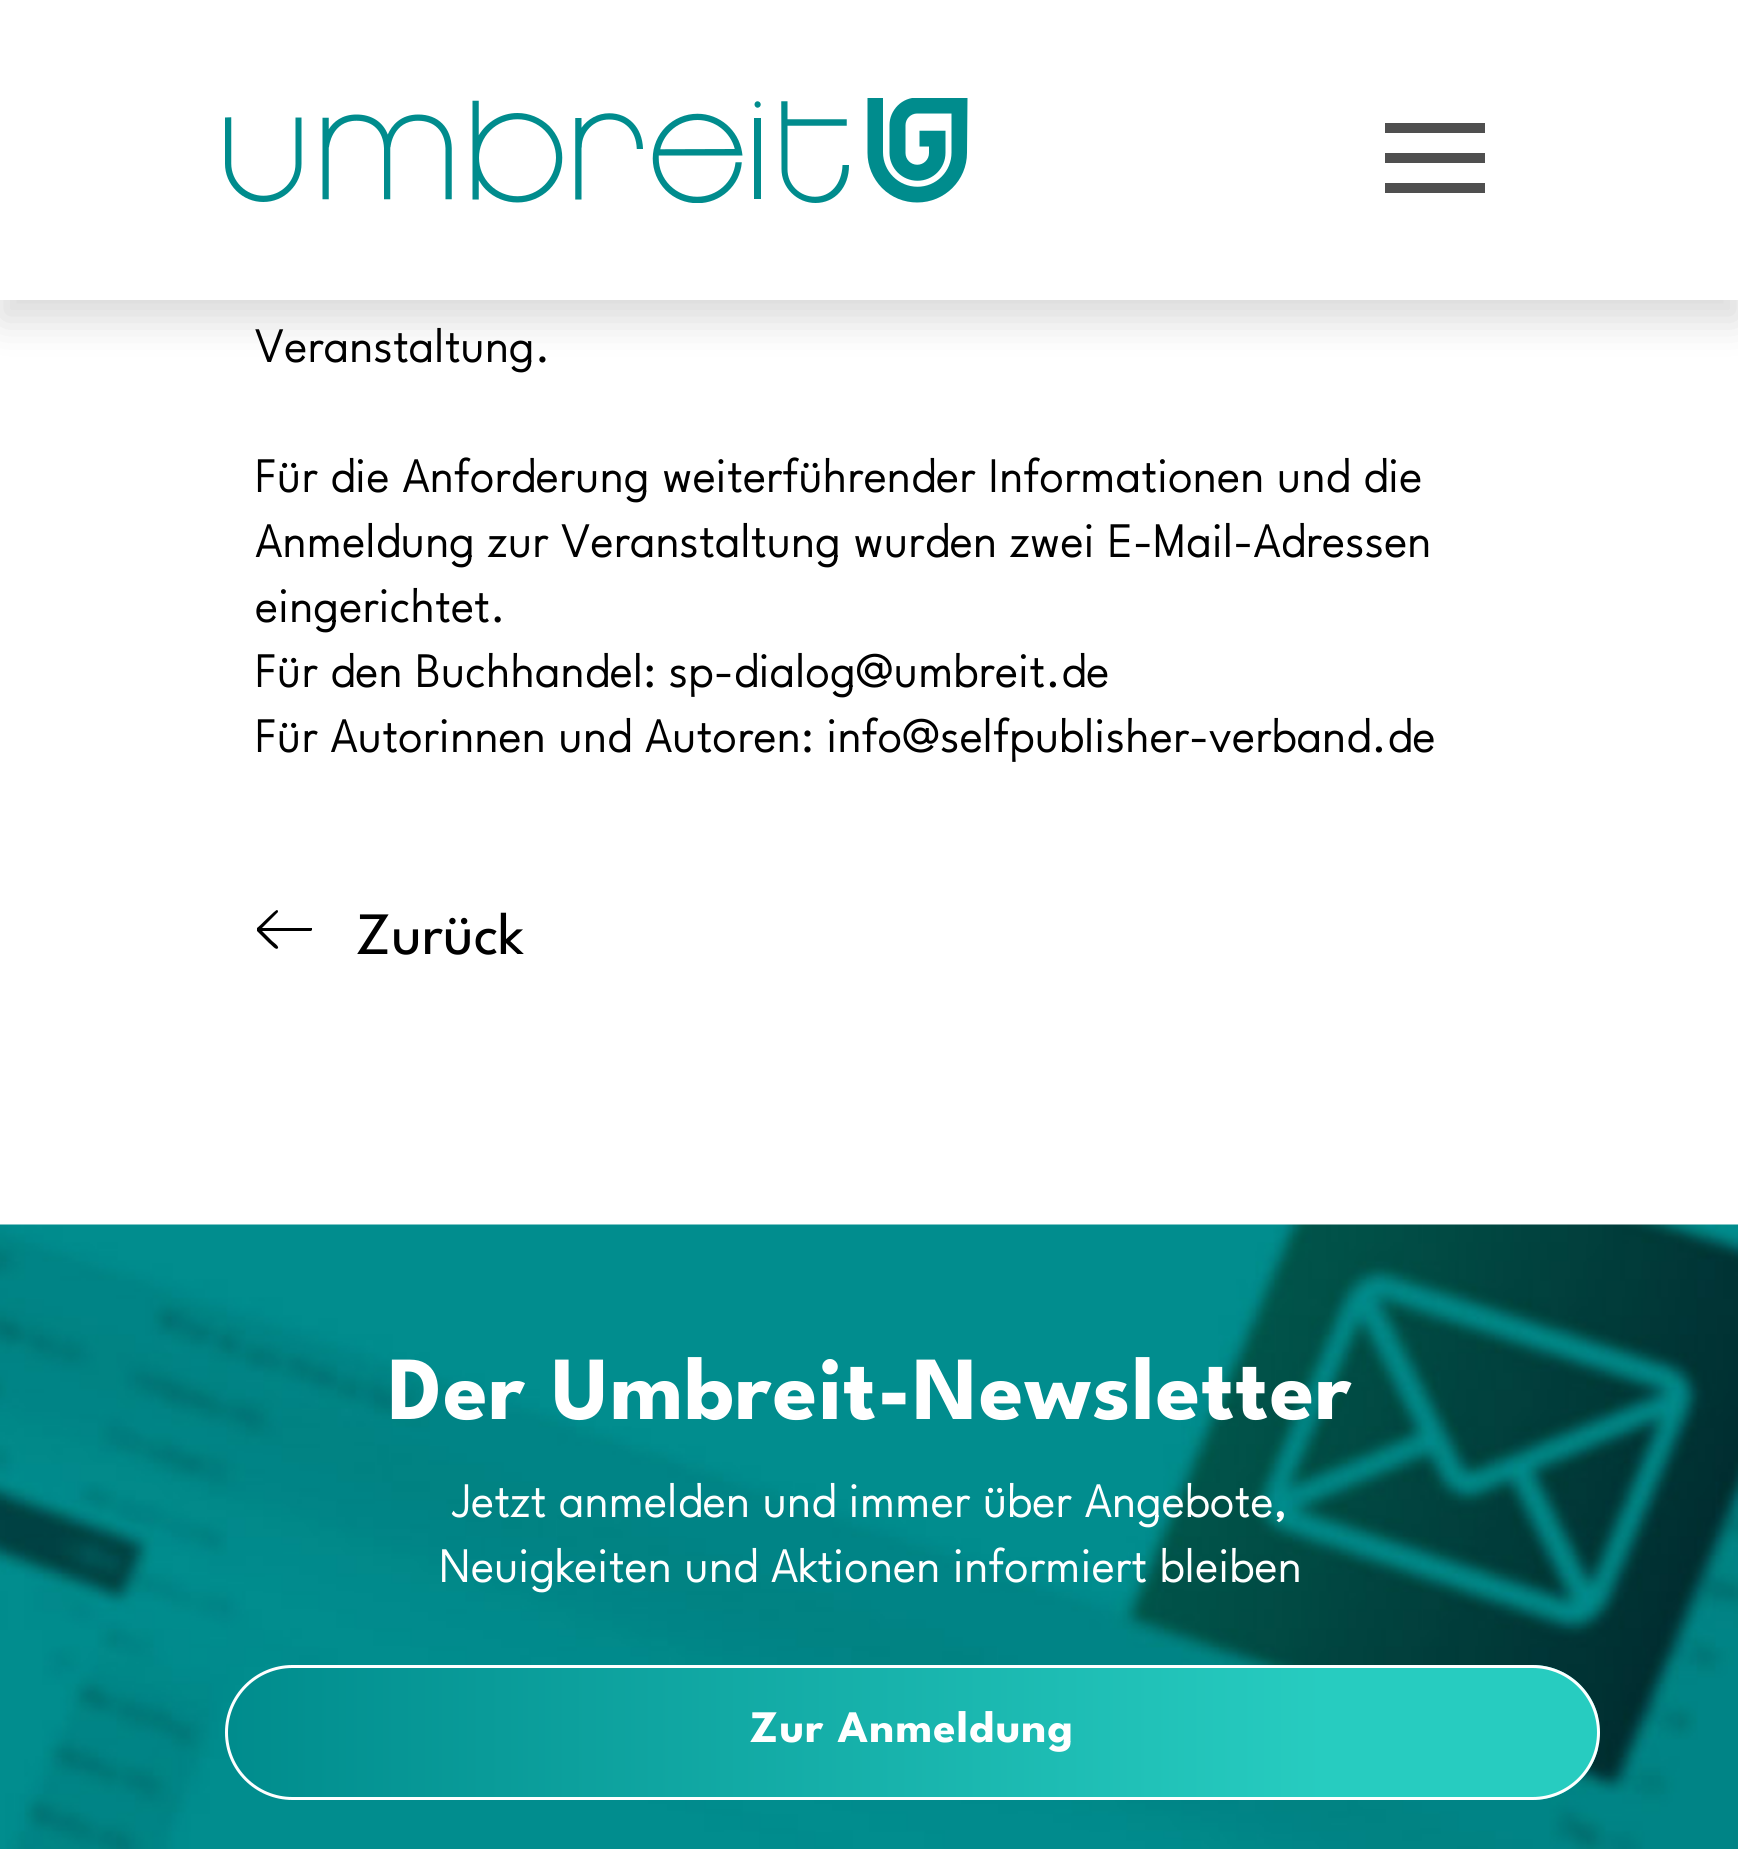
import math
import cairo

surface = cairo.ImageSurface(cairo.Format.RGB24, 1738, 1849)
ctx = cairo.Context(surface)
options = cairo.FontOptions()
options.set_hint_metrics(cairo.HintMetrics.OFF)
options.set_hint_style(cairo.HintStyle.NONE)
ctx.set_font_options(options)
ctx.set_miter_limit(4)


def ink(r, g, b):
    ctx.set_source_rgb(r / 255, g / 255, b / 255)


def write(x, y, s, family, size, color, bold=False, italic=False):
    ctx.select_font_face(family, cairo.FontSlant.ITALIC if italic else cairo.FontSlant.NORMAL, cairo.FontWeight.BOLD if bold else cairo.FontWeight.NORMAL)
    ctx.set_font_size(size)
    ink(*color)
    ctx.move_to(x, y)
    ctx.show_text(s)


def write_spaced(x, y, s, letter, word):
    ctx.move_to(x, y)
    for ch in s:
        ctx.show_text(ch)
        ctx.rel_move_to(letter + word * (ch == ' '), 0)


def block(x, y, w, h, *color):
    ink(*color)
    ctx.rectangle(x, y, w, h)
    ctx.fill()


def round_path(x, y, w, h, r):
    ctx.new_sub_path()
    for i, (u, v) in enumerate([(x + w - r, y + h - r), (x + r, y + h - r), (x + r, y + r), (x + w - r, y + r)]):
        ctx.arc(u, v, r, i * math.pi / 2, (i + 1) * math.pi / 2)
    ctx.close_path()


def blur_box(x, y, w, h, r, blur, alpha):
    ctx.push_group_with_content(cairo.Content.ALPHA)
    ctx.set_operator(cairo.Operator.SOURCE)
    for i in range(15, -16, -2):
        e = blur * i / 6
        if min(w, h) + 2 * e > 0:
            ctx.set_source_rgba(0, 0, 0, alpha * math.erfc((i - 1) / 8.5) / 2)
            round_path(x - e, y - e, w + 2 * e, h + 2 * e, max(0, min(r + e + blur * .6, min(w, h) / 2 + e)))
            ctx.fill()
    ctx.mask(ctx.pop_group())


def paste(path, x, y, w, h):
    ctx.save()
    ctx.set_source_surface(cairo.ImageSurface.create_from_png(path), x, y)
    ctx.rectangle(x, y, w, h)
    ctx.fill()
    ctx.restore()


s1 = dict(family="League Spartan Thin", size=60, color=(0, 0, 0))

ink(255, 255, 255)
ctx.paint()
ink(0, 0, 0)
blur_box(0, 20, 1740, 300, 0, 20, 0.15)
block(0, 0, 1738, 300, 255, 255, 255)
paste("pic1.png", 225, 98, 743, 105)
block(1385, 123, 100, 10, 79, 79, 79)
block(1385, 153, 100, 10, 79, 79, 79)
block(1385, 183, 100, 10, 79, 79, 79)
ctx.select_font_face("League Spartan", cairo.FontSlant.NORMAL, cairo.FontWeight.BOLD)
ctx.set_font_size(47.5)
ink(0, 0, 0)
write_spaced(255, 362, "Veranstaltung.", 1.25, 0)
write_spaced(255, 492, "Für die Anforderung weiterführender Informationen und die", 1.25, 0)
write_spaced(255, 557, "Anmeldung zur Veranstaltung wurden zwei E-Mail-Adressen", 1.25, 0)
write_spaced(255, 622, "eingerichtet.", 1.25, 0)
write_spaced(255, 687, "Für den Buchhandel: sp-dialog@umbreit.de", 1.25, 0)
write_spaced(255, 752, "Für Autorinnen und Autoren: info@selfpublisher-verband.de", 1.25, 0)
ctx.new_path()
ctx.move_to(257, 928)
ctx.curve_to(260, 926, 275, 910, 277, 910)
ctx.curve_to(278, 910, 278, 912, 278, 912)
ctx.line_to(262, 928)
ctx.line_to(312, 928)
ctx.line_to(312, 930)
ctx.line_to(311, 931)
ctx.line_to(262, 931)
ctx.line_to(272, 941)
ctx.curve_to(273, 942, 279, 946, 278, 948)
ctx.curve_to(276, 951, 272, 945, 269, 943)
ctx.line_to(257, 931)
ctx.close_path()
ctx.fill()
write(356, 954, "Zurück", **s1)
paste("pic2.png", 0, 1224, 1738, 625)
ctx.select_font_face("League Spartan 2 Thin")
ctx.set_font_size(90)
ink(255, 255, 255)
write_spaced(388, 1419, "Der Umbreit-Newsletter", 1.25, 0)
ctx.select_font_face("League Spartan", cairo.FontSlant.NORMAL, cairo.FontWeight.BOLD)
ctx.set_font_size(47.5)
write_spaced(452, 1517, "Jetzt anmelden und immer über Angebote,", 1.25, 0)
write_spaced(439, 1582, "Neuigkeiten und Aktionen informiert bleiben", 1.25, 0)
ctx.save()
round_path(225, 1665, 1375, 135, 67.5)
ctx.clip()
gradient = cairo.LinearGradient(228, 1733, 1598, 1733)
gradient.add_color_stop_rgba(0, 0, 0.549, 0.553, 1)
gradient.add_color_stop_rgba(0.8, 0.153, 0.8, 0.753, 1)
ctx.set_source(gradient)
ctx.rectangle(228, 1665, 1370, 135)
ctx.fill()
ctx.restore()
round_path(226.5, 1666.5, 1372, 132, 66)
ctx.set_line_width(3)
ctx.stroke()
ctx.select_font_face("League Spartan 2 Thin")
ctx.set_font_size(45)
write_spaced(750, 1742, "Zur Anmeldung", 1.25, 0)
surface.write_to_png("screenshot.png")
